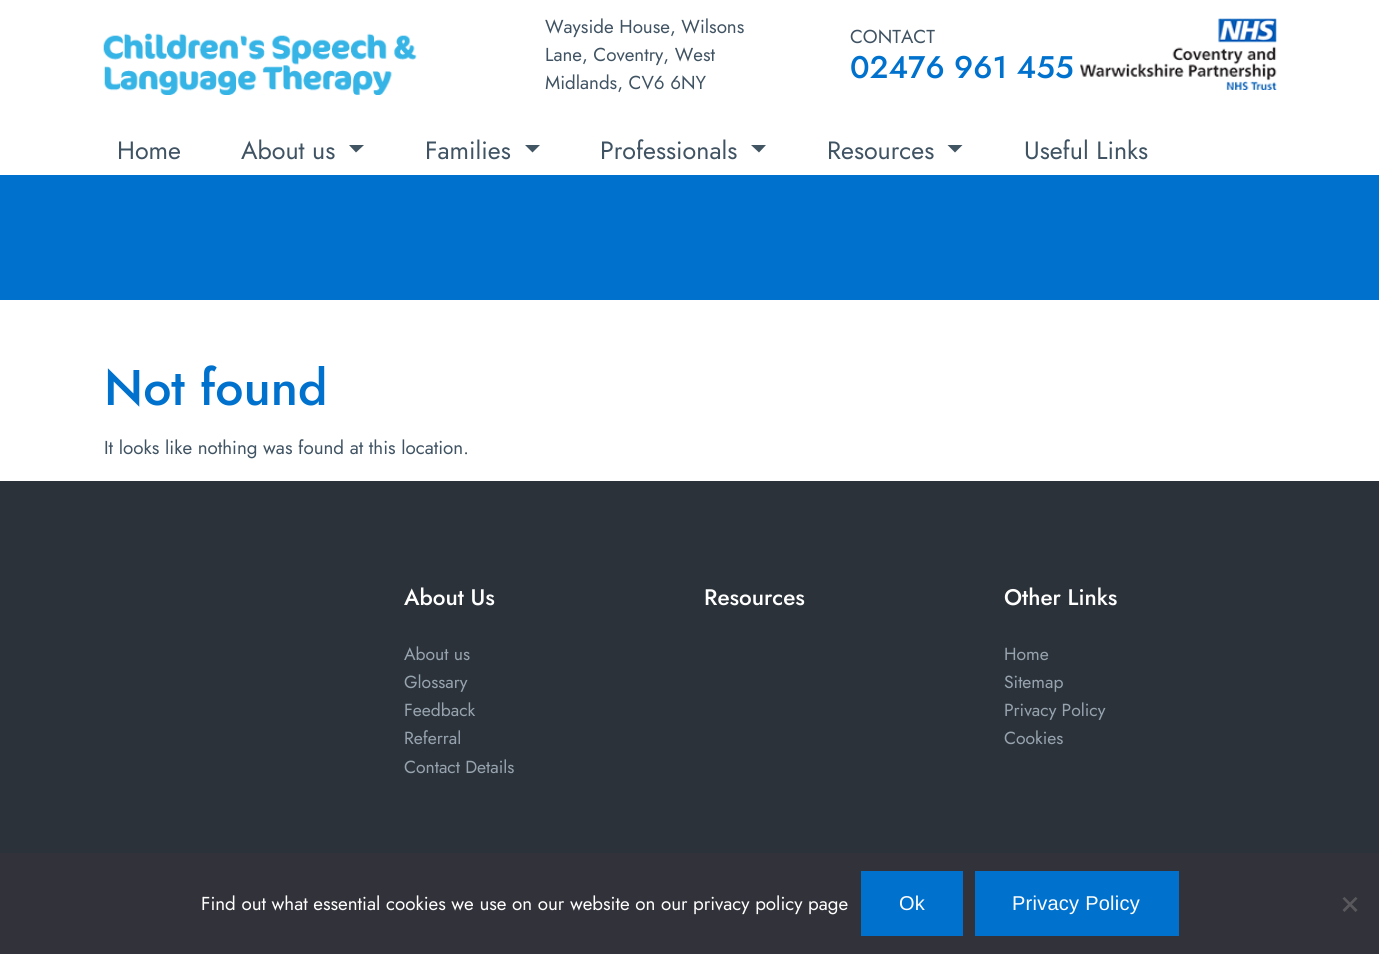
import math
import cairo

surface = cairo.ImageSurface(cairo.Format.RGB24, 1379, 954)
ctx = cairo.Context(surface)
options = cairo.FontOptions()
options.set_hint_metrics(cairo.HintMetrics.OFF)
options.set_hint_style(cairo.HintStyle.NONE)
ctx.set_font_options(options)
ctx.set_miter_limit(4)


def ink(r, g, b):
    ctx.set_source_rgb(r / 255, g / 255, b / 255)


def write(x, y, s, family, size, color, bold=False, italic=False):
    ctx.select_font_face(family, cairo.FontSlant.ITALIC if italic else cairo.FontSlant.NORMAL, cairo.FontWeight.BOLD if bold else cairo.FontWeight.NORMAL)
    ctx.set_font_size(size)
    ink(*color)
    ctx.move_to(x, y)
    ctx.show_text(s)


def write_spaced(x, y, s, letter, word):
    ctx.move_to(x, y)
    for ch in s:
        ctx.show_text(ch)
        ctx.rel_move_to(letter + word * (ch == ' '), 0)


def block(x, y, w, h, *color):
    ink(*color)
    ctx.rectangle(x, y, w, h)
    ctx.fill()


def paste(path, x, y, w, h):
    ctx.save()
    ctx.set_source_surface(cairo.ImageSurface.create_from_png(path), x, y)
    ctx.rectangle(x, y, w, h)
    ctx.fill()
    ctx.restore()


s1 = dict(family="Jost", size=18.75, color=(64, 83, 99))
s2 = dict(family="Jost Medium", size=31.25, color=(0, 114, 205))
s3 = dict(family="Jost", size=25, color=(64, 83, 99))
s4 = dict(family="Jost Medium", size=50, color=(0, 114, 205))
s5 = dict(family="Jost Medium", size=22.5, color=(255, 255, 255))
s6 = dict(family="Jost", size=17.5, color=(151, 164, 176))
s7 = dict(family="Jost", size=18.75, color=(255, 255, 255))

ink(255, 255, 255)
ctx.paint()
paste("pic1.png", 103, 33, 314, 62)
write(545, 33, "Wayside House, Wilsons", **s1)
write(545, 61, "Lane, Coventry, West", **s1)
write(545, 89, "Midlands, CV6 6NY", **s1)
write(850, 43, "CONTACT", **s1)
write(850, 78, "02476 961 455", **s2)
paste("pic2.png", 1080, 18, 197, 72)
write(117, 159, "Home", **s3)
write(241, 159, "About us", **s3)
ink(66, 85, 99)
ctx.new_path()
ctx.move_to(349, 145)
ctx.line_to(364, 145)
ctx.line_to(356, 152.5)
ctx.close_path()
ctx.fill()
write(425, 159, "Families", **s3)
ink(66, 85, 99)
ctx.new_path()
ctx.move_to(525, 145)
ctx.line_to(540, 145)
ctx.line_to(532.5, 152.5)
ctx.close_path()
ctx.fill()
write(600, 159, "Professionals", **s3)
ink(66, 85, 99)
ctx.new_path()
ctx.move_to(751, 145)
ctx.line_to(766, 145)
ctx.line_to(759, 152.5)
ctx.close_path()
ctx.fill()
write(827, 159, "Resources", **s3)
ink(66, 85, 99)
ctx.new_path()
ctx.move_to(947.5, 145)
ctx.line_to(962.5, 145)
ctx.line_to(955, 152.5)
ctx.close_path()
ctx.fill()
write(1024, 159, "Useful Links", **s3)
block(0, 175, 1379, 125, 0, 114, 206)
write(104, 405, "Not found", **s4)
write(104, 454, "It looks like nothing was found at this location.", **s1)
block(0, 481, 1379, 372, 43, 50, 57)
write(404, 605, "About Us", **s5)
write(404, 660, "About us", **s6)
write(404, 688, "Glossary", **s6)
write(404, 716, "Feedback", **s6)
write(404, 744, "Referral", **s6)
write(404, 773, "Contact Details", **s6)
write(704, 605, "Resources", **s5)
write(1004, 605, "Other Links", **s5)
write(1004, 660, "Home", **s6)
write(1004, 688, "Sitemap", **s6)
write(1004, 716, "Privacy Policy", **s6)
write(1004, 744, "Cookies", **s6)
block(0, 853, 1379, 101, 50, 50, 58)
write(201, 910, "Find out what essential cookies we use on our website on our privacy policy page", **s7)
block(861, 871, 102, 65, 0, 114, 206)
ctx.select_font_face("Liberation Sans")
ctx.set_font_size(20)
ink(255, 255, 255)
write_spaced(899, 910, "Ok", 0.25, 0)
block(975, 871, 204, 65, 0, 114, 206)
ink(255, 255, 255)
write_spaced(1012, 910, "Privacy Policy", 0.25, 0)
ink(89, 89, 93)
ctx.new_path()
ctx.move_to(1355.5, 897)
ctx.line_to(1357.5, 898.5)
ctx.line_to(1344.5, 912)
ctx.line_to(1342.5, 910)
ctx.close_path()
ctx.fill()
ctx.new_path()
ctx.move_to(1342.5, 898.5)
ctx.line_to(1344.5, 897)
ctx.line_to(1357.5, 910)
ctx.line_to(1355.5, 912)
ctx.close_path()
ctx.fill()
surface.write_to_png("screenshot.png")
